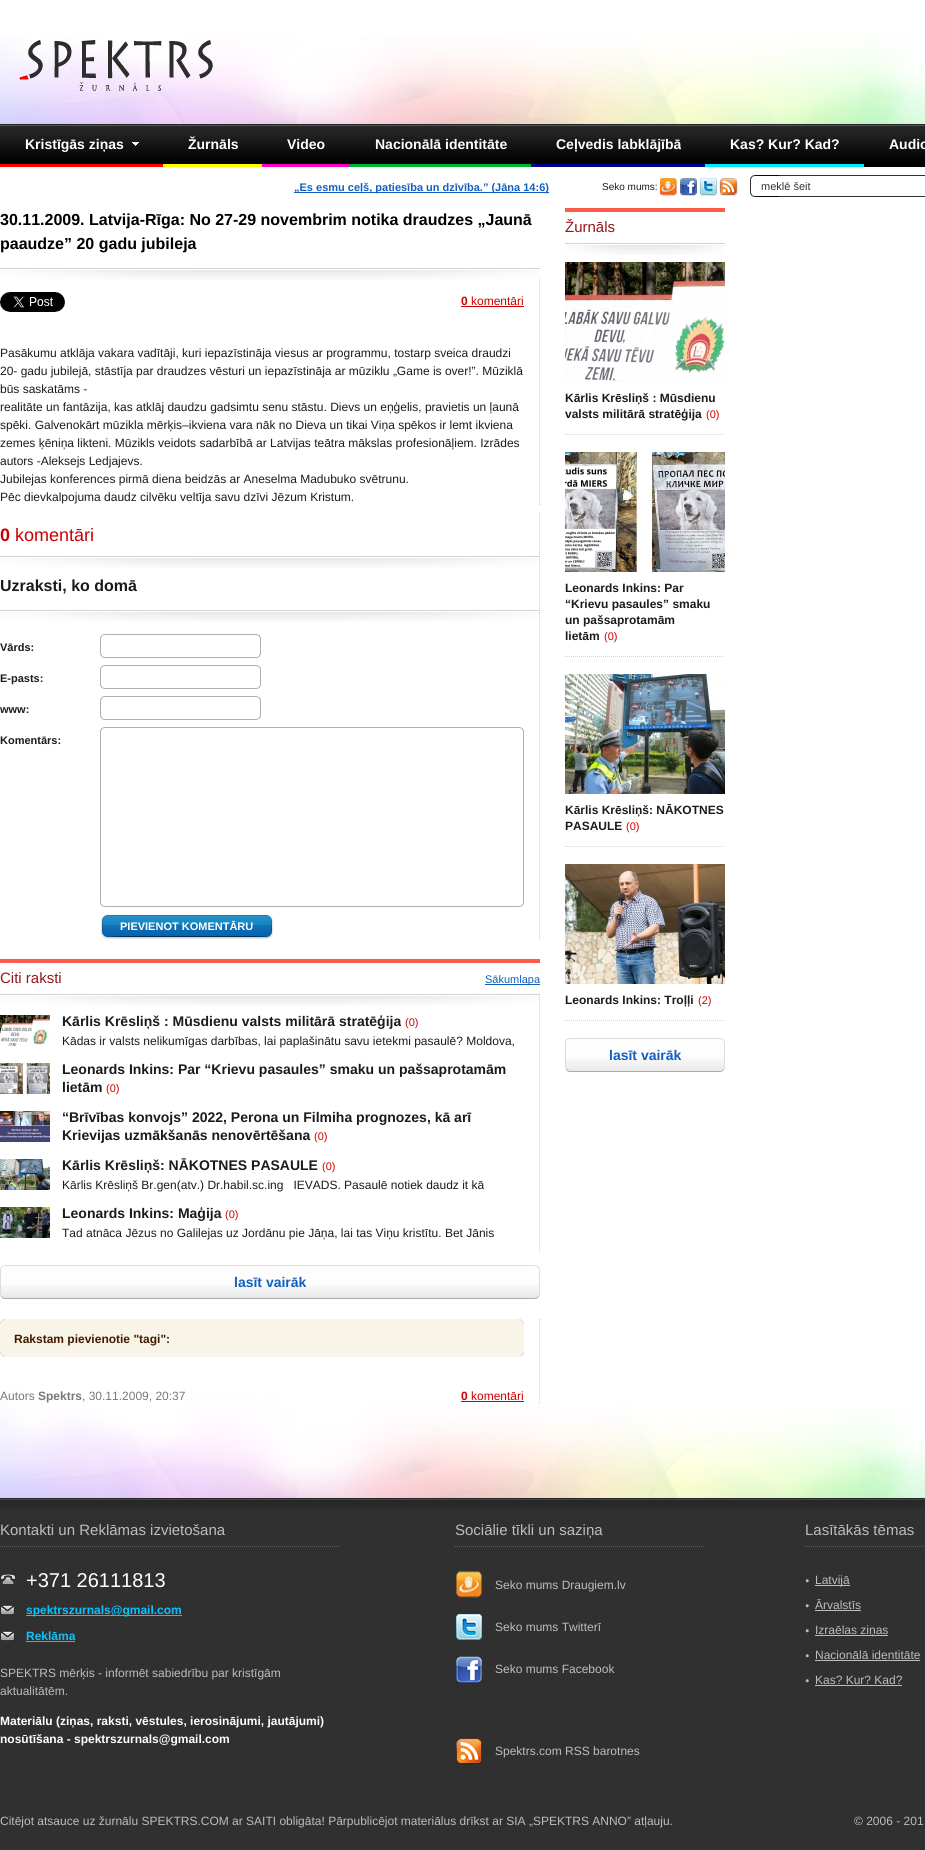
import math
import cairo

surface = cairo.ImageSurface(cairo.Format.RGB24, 925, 1850)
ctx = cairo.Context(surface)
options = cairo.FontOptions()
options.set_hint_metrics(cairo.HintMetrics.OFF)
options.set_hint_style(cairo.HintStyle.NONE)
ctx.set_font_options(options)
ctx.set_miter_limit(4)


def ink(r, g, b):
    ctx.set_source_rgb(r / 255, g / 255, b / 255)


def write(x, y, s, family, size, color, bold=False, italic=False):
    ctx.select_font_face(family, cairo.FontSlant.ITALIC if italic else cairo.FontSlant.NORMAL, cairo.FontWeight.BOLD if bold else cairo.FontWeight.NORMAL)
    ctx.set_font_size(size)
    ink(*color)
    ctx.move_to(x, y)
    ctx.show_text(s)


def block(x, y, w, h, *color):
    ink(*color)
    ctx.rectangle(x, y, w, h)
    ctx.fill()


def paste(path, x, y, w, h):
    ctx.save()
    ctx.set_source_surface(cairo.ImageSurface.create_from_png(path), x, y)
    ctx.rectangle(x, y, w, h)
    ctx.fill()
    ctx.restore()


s1 = dict(family="Liberation Sans", size=14, color=(255, 255, 255), bold=True)
s2 = dict(family="Liberation Sans", size=11, color=(17, 95, 191), bold=True)
s3 = dict(family="Liberation Sans", size=10, color=(27, 27, 27))
s4 = dict(family="Liberation Sans", size=11, color=(51, 51, 51))
s5 = dict(family="Liberation Sans", size=16, color=(0, 0, 0), bold=True)
s6 = dict(family="Liberation Sans", size=12, color=(204, 0, 0), bold=True)
s7 = dict(family="Liberation Sans", size=12, color=(204, 0, 0))
s8 = dict(family="Liberation Sans", size=12, color=(27, 27, 27))
s9 = dict(family="Liberation Sans", size=18, color=(204, 0, 0), bold=True)
s10 = dict(family="Liberation Sans", size=18, color=(204, 0, 0))
s11 = dict(family="Liberation Sans", size=16, color=(27, 27, 27), bold=True)
s12 = dict(family="Liberation Sans", size=11, color=(27, 27, 27), bold=True)
s13 = dict(family="Liberation Sans", size=11, color=(255, 255, 255), bold=True)
s14 = dict(family="Liberation Sans", size=15, color=(149, 23, 23))
s15 = dict(family="Liberation Sans", size=11, color=(17, 95, 191))
s16 = dict(family="Liberation Sans", size=14, color=(27, 27, 27), bold=True)
s17 = dict(family="Liberation Sans", size=11, color=(204, 0, 0))
s18 = dict(family="Liberation Sans", size=14, color=(17, 95, 191), bold=True)
s19 = dict(family="Liberation Sans", size=12, color=(68, 27, 0), bold=True)
s20 = dict(family="Liberation Sans", size=12, color=(120, 120, 120))
s21 = dict(family="Liberation Sans", size=12, color=(120, 120, 120), bold=True)
s22 = dict(family="Liberation Sans", size=12, color=(27, 27, 27), bold=True)
s23 = dict(family="Liberation Sans", size=15, color=(189, 189, 189))
s24 = dict(family="Liberation Sans", size=20, color=(255, 255, 255))
s25 = dict(family="Liberation Sans", size=12, color=(11, 195, 255), bold=True)
s26 = dict(family="Liberation Sans", size=12, color=(189, 189, 189))
s27 = dict(family="Liberation Sans", size=12, color=(255, 255, 255), bold=True)

ink(255, 255, 255)
ctx.paint()
paste("pic1.png", 0, 36, 925, 88)
paste("pic2.png", 19, 40, 194, 51)
paste("pic3.png", 0, 124, 925, 40)
block(864, 164, 61, 3, 0, 0, 0)
block(0, 164, 163, 3, 255, 0, 0)
paste("pic4.png", 132, 142, 7, 5)
write(25, 149, "Kristīgās ziņas", **s1)
block(163, 164, 99, 3, 255, 252, 0)
write(188, 149, "Žurnāls", **s1)
block(262, 164, 88, 3, 255, 0, 198)
write(287, 149, "Video", **s1)
block(350, 164, 181, 3, 1, 180, 57)
write(375, 149, "Nacionālā identitāte", **s1)
block(531, 164, 174, 3, 0, 3, 144)
write(556, 149, "Ceļvedis labklājībā", **s1)
block(705, 164, 159, 3, 0, 234, 255)
write(730, 149, "Kas? Kur? Kad?", **s1)
write(889, 149, "Audio", **s1)
block(294, 192, 255, 1, 17, 95, 191)
write(294, 191, "„Es esmu ceļš, patiesība un dzīvība.” (Jāņa 14:6)", **s2)
write(602, 190, "Seko mums:", **s3)
paste("pic5.png", 660, 178, 17, 18)
paste("pic6.png", 680, 178, 17, 18)
paste("pic7.png", 700, 178, 17, 18)
paste("pic8.png", 719, 178, 19, 18)
paste("pic9.png", 750, 175, 175, 22)
write(761, 190, "meklē šeit", **s4)
paste("pic10.png", 0, 268, 540, 12)
write(0, 225, "30.11.2009. Latvija-Rīga: No 27-29 novembrim notika draudzes „Jaunā", **s5)
write(0, 249, "paaudze” 20 gadu jubileja", **s5)
paste("pic11.png", 539, 278, 1, 227)
paste("pic12.png", 0, 292, 65, 20)
write(461, 305, "0", **s6)
block(461, 306, 63, 1, 204, 0, 0)
write(471, 305, "komentāri", **s7)
write(0, 357, "Pasākumu atklāja vakara vadītāji, kuri iepazīstināja viesus ar programmu, tostarp sveica draudzi", **s8)
write(0, 375, "20- gadu jubilejā, stāstīja par draudzes vēsturi un iepazīstināja ar mūziklu „Game is over!”. Mūziklā", **s8)
write(0, 393, "būs saskatāms -", **s8)
write(0, 411, "realitāte un fantāzija, kas atklāj daudzu gadsimtu senu stāstu. Dievs un eņģelis, pravietis un ļaunā", **s8)
write(0, 429, "spēki. Galvenokārt mūzikla mērķis–ikviena vara nāk no Dieva un tikai Viņa spēkos ir lemt ikviena", **s8)
write(0, 447, "zemes ķēniņa likteni. Mūzikls veidots sadarbībā ar Latvijas teātra mākslas profesionāļiem. Izrādes", **s8)
write(0, 465, "autors -Aleksejs Ledjajevs.", **s8)
write(0, 483, "Jubilejas konferences pirmā diena beidzās ar Aneselma Madubuko svētrunu.", **s8)
write(0, 501, "Pēc dievkalpojuma daudz cilvēku veltīja savu dzīvi Jēzum Kristum.", **s8)
paste("pic13.png", 539, 512, 1, 427)
paste("pic14.png", 0, 556, 540, 12)
write(0, 541, "0", **s9)
write(15, 541, "komentāri", **s10)
paste("pic14.png", 0, 610, 540, 12)
write(0, 591, "Uzraksti, ko domā", **s11)
write(0, 651, "Vārds:", **s12)
paste("pic15.png", 100, 634, 5, 5)
block(105, 634, 151, 1, 175, 175, 175)
paste("pic16.png", 256, 634, 5, 5)
block(100, 639, 1, 14, 175, 175, 175)
block(260, 639, 1, 14, 175, 175, 175)
paste("pic17.png", 100, 653, 5, 5)
block(105, 657, 151, 1, 175, 175, 175)
paste("pic18.png", 256, 653, 5, 5)
write(0, 682, "E-pasts:", **s12)
paste("pic15.png", 100, 665, 5, 5)
block(105, 665, 151, 1, 175, 175, 175)
paste("pic16.png", 256, 665, 5, 5)
block(100, 670, 1, 14, 175, 175, 175)
block(260, 670, 1, 14, 175, 175, 175)
paste("pic17.png", 100, 684, 5, 5)
block(105, 688, 151, 1, 175, 175, 175)
paste("pic18.png", 256, 684, 5, 5)
write(0, 713, "www:", **s12)
paste("pic15.png", 100, 696, 5, 5)
block(105, 696, 151, 1, 175, 175, 175)
paste("pic16.png", 256, 696, 5, 5)
block(100, 701, 1, 14, 175, 175, 175)
block(260, 701, 1, 14, 175, 175, 175)
paste("pic17.png", 100, 715, 5, 5)
block(105, 719, 151, 1, 175, 175, 175)
paste("pic18.png", 256, 715, 5, 5)
write(0, 744, "Komentārs:", **s12)
paste("pic15.png", 100, 727, 5, 5)
block(105, 727, 414, 1, 175, 175, 175)
paste("pic16.png", 519, 727, 5, 5)
block(100, 732, 1, 170, 175, 175, 175)
block(523, 732, 1, 170, 175, 175, 175)
paste("pic17.png", 100, 902, 5, 5)
block(105, 906, 414, 1, 175, 175, 175)
paste("pic18.png", 519, 902, 5, 5)
paste("pic19.png", 100, 914, 174, 25)
write(120, 930, "PIEVIENOT KOMENTĀRU", **s13)
block(0, 959, 540, 4, 255, 91, 76)
paste("pic10.png", 0, 994, 540, 12)
write(0, 983, "Citi raksti", **s14)
block(485, 984, 55, 1, 17, 95, 191)
write(485, 983, "Sākumlapa", **s15)
paste("pic20.png", 539, 995, 1, 257)
paste("pic21.png", 0, 1015, 50, 31)
write(62, 1026, "Kārlis Krēsliņš : Mūsdienu valsts militārā stratēģija", **s16)
write(405, 1026, "(0)", **s17)
write(62, 1045, "Kādas ir valsts nelikumīgas darbības, lai paplašinātu savu ietekmi pasaulē? Moldova,", **s8)
paste("pic22.png", 0, 1063, 50, 31)
write(62, 1074, "Leonards Inkins: Par “Krievu pasaules” smaku un pašsaprotamām", **s16)
write(62, 1092, "lietām", **s16)
write(106, 1092, "(0)", **s17)
paste("pic23.png", 0, 1111, 50, 31)
write(62, 1122, "“Brīvības konvojs” 2022, Perona un Filmiha prognozes, kā arī", **s16)
write(62, 1140, "Krievijas uzmākšanās nenovērtēšana", **s16)
write(314, 1140, "(0)", **s17)
paste("pic24.png", 0, 1159, 50, 31)
write(62, 1170, "Kārlis Krēsliņš: NĀKOTNES PASAULE", **s16)
write(322, 1170, "(0)", **s17)
write(62, 1189, "Kārlis Krēsliņš Br.gen(atv.) Dr.habil.sc.ing   IEVADS. Pasaulē notiek daudz it kā", **s8)
paste("pic25.png", 0, 1207, 50, 31)
write(62, 1218, "Leonards Inkins: Maģija", **s16)
write(225, 1218, "(0)", **s17)
write(62, 1237, "Tad atnāca Jēzus no Galilejas uz Jordānu pie Jāņa, lai tas Viņu kristītu. Bet Jānis", **s8)
paste("pic26.png", 534, 1265, 6, 34)
paste("pic27.png", 0, 1265, 534, 34)
write(234, 1287, "lasīt vairāk", **s18)
paste("pic41.png", 0, 1374, 925, 124)
paste("pic28.png", 539, 1319, 1, 85)
paste("pic29.png", 0, 1319, 5, 5)
block(5, 1319, 514, 5, 248, 244, 232)
paste("pic30.png", 519, 1319, 5, 5)
block(0, 1324, 524, 28, 248, 244, 232)
write(14, 1343, "Rakstam pievienotie \"tagi\":", **s19)
paste("pic31.png", 0, 1352, 5, 5)
block(5, 1352, 514, 5, 248, 244, 232)
paste("pic32.png", 519, 1352, 5, 5)
write(0, 1400, "Autors", **s20)
write(38, 1400, "Spektrs", **s21)
write(82, 1400, ", 30.11.2009, 20:37", **s20)
write(461, 1400, "0", **s6)
block(461, 1401, 63, 1, 204, 0, 0)
write(471, 1400, "komentāri", **s7)
block(565, 208, 160, 4, 255, 91, 76)
paste("pic33.png", 565, 243, 160, 12)
write(565, 232, "Žurnāls", **s14)
paste("pic34.png", 565, 262, 160, 120)
write(565, 402, "Kārlis Krēsliņš : Mūsdienu", **s22)
write(565, 418, "valsts militārā stratēģija", **s22)
write(706, 418, "(0)", **s17)
paste("pic35.png", 565, 434, 159, 1)
paste("pic36.png", 565, 452, 160, 120)
write(565, 592, "Leonards Inkins: Par", **s22)
write(565, 608, "“Krievu pasaules” smaku", **s22)
write(565, 624, "un pašsaprotamām", **s22)
write(565, 640, "lietām", **s22)
write(604, 640, "(0)", **s17)
paste("pic35.png", 565, 656, 159, 1)
paste("pic37.png", 565, 674, 160, 120)
write(565, 814, "Kārlis Krēsliņš: NĀKOTNES", **s22)
write(565, 830, "PASAULE", **s22)
write(626, 830, "(0)", **s17)
paste("pic35.png", 565, 846, 159, 1)
paste("pic38.png", 565, 864, 160, 120)
write(565, 1004, "Leonards Inkins: Troļļi", **s22)
write(698, 1004, "(2)", **s17)
paste("pic35.png", 565, 1020, 159, 1)
paste("pic26.png", 719, 1038, 6, 34)
paste("pic39.png", 565, 1038, 154, 34)
write(609, 1060, "lasīt vairāk", **s18)
block(0, 1509, 925, 341, 48, 48, 48)
paste("pic40.png", 0, 1498, 925, 11)
paste("pic42.png", 0, 1546, 339, 1)
write(0, 1535, "Kontakti un Reklāmas izvietošana", **s23)
paste("pic43.png", 0, 1574, 16, 11)
write(26, 1587, "+371 26111813", **s24)
paste("pic44.png", 0, 1605, 15, 10)
block(26, 1615, 156, 1, 11, 195, 255)
write(26, 1614, "spektrszurnals@gmail.com", **s25)
paste("pic44.png", 0, 1631, 15, 10)
write(26, 1640, "Reklāma", **s25)
block(26, 1641, 49, 1, 11, 195, 255)
write(0, 1677, "SPEKTRS mērķis - informēt sabiedrību par kristīgām", **s26)
write(0, 1695, "aktualitātēm.", **s26)
write(0, 1725, "Materiālu (ziņas, raksti, vēstules, ierosinājumi, jautājumi)", **s27)
write(0, 1743, "nosūtīšana - spektrszurnals@gmail.com", **s27)
paste("pic45.png", 455, 1546, 249, 1)
write(455, 1535, "Sociālie tīkli un saziņa", **s23)
paste("pic46.png", 456, 1571, 26, 27)
write(495, 1589, "Seko mums Draugiem.lv", **s26)
paste("pic47.png", 456, 1614, 26, 26)
write(495, 1631, "Seko mums Twitterī", **s26)
paste("pic48.png", 456, 1656, 26, 27)
write(495, 1673, "Seko mums Facebook", **s26)
paste("pic49.png", 456, 1738, 26, 27)
write(495, 1755, "Spektrs.com RSS barotnes", **s26)
paste("pic50.png", 805, 1546, 119, 1)
write(805, 1535, "Lasītākās tēmas", **s23)
paste("pic51.png", 805, 1579, 4, 4)
block(815, 1585, 35, 1, 189, 189, 189)
write(815, 1584, "Latvijā", **s26)
paste("pic51.png", 805, 1604, 4, 4)
write(815, 1609, "Ārvalstīs", **s26)
block(815, 1610, 46, 1, 189, 189, 189)
paste("pic51.png", 805, 1629, 4, 4)
block(815, 1635, 73, 1, 189, 189, 189)
write(815, 1634, "Izraēlas ziņas", **s26)
paste("pic51.png", 805, 1654, 4, 4)
write(815, 1659, "Nacionālā identitāte", **s26)
block(815, 1660, 105, 1, 189, 189, 189)
paste("pic51.png", 805, 1679, 4, 4)
write(815, 1684, "Kas? Kur? Kad?", **s26)
block(815, 1685, 87, 1, 189, 189, 189)
write(0, 1825, "Citējot atsauce uz žurnālu SPEKTRS.COM ar SAITI obligāta! Pārpublicējot materiālus drīkst ar SIA „SPEKTRS ANNO” atļauju.", **s26)
write(854, 1825, "© 2006 - 201", **s26)
surface.write_to_png("screenshot.png")
